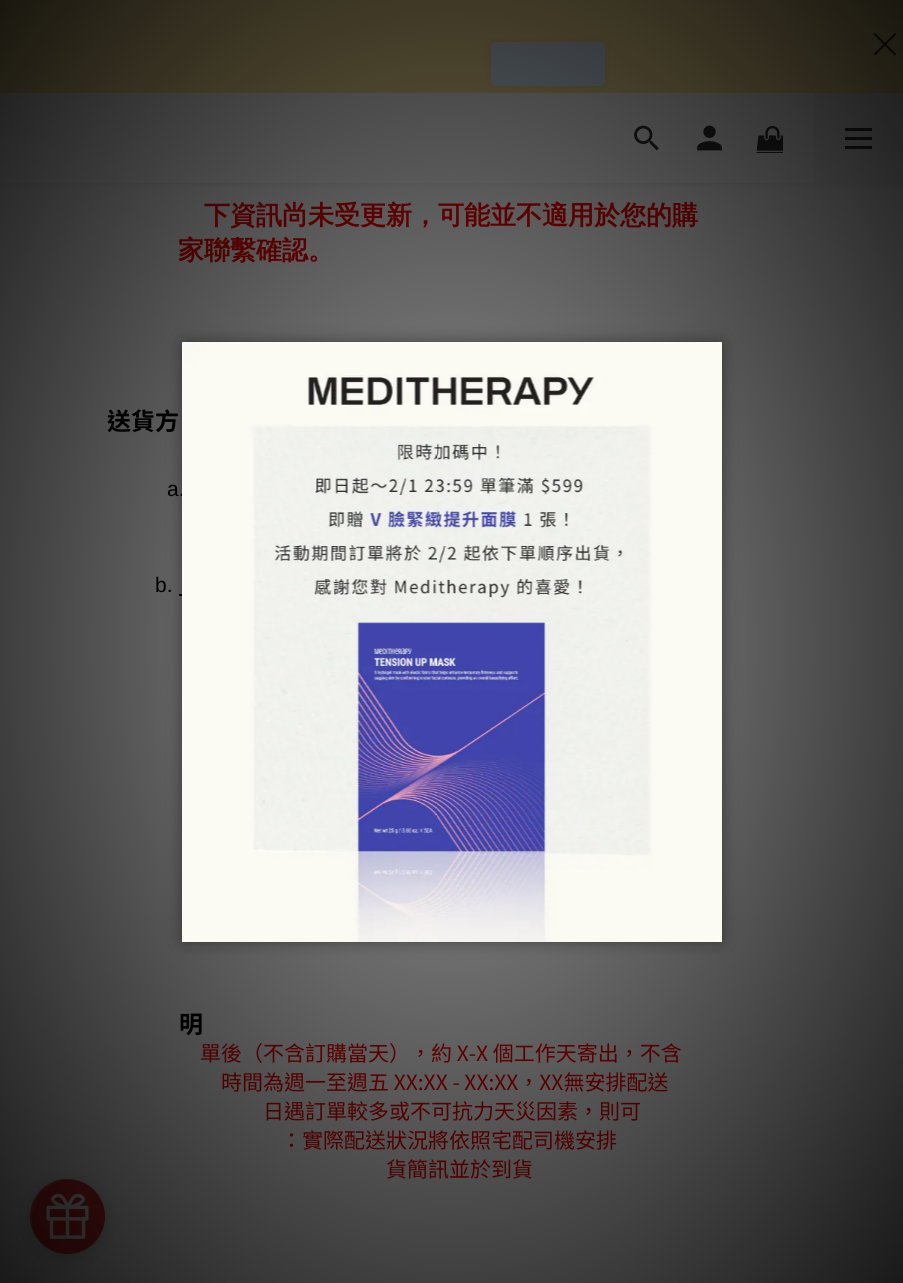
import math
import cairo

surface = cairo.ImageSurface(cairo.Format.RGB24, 903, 1283)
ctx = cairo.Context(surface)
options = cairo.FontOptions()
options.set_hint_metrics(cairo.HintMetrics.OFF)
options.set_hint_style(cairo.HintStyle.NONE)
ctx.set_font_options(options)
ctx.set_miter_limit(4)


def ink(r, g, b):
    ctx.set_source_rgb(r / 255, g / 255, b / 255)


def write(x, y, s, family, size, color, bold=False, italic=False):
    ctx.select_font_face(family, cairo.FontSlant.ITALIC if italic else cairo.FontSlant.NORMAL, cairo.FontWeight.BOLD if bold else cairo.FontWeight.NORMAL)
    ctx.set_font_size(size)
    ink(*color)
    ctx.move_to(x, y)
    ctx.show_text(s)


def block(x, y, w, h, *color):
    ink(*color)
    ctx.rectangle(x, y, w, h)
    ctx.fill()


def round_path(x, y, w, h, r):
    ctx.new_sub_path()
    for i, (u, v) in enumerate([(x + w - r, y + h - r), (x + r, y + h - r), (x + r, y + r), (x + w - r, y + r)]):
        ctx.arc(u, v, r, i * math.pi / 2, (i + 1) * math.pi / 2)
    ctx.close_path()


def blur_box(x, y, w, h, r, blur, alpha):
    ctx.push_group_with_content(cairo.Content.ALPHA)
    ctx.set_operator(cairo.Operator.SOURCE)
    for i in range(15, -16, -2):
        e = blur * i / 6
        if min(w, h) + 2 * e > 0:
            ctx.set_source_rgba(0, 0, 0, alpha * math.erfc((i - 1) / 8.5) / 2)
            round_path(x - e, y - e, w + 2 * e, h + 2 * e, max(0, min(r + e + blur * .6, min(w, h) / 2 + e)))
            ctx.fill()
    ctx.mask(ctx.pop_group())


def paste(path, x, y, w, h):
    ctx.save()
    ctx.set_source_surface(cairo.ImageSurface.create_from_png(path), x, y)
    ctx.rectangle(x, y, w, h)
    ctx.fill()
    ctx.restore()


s1 = dict(family="WenQuanYi Zen Hei", size=26, color=(255, 0, 0), bold=True)
s2 = dict(family="Noto Sans TC", size=24, color=(0, 0, 0), bold=True)
s3 = dict(family="Liberation Sans", size=21, color=(0, 0, 0))
s4 = dict(family="Noto Sans TC", size=21, color=(255, 0, 0))

ink(255, 255, 255)
ctx.paint()
ctx.save()
ctx.rectangle(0, 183, 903, 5)
ctx.clip()
ink(0, 0, 0)
blur_box(0, 96, 903, 90, 0, 4.5, 0.06)
ctx.restore()
block(0, 0, 903, 93, 255, 229, 153)
ink(0, 0, 0)
blur_box(491, 42, 114, 44, 5, 4, 0.1)
ink(224, 240, 255)
round_path(491, 42, 114, 44, 5)
ctx.fill()
paste("pic1.png", 873, 33, 23, 23)
paste("pic3.png", 634, 125, 25, 26)
paste("pic4.png", 697, 125, 25, 26)
paste("pic5.png", 756, 126, 27, 27)
block(813, 93, 90, 90, 245, 245, 245)
block(845, 137, 27, 3, 51, 51, 51)
block(845, 128, 27, 3, 51, 51, 51)
block(845, 146, 27, 3, 51, 51, 51)
write(204, 224, "下資訊尚未受更新，可能並不適用於您的購", **s1)
write(178, 259, "家聯繫確認。", **s1)
write(107, 430, "送貨方", **s2)
write(167, 496, "a.", **s3)
write(155, 592, "b.", **s3)
block(179, 594, 3, 2, 0, 0, 0)
write(179, 1033, "明", **s2)
write(200, 1061, "單後（不含訂購當天），約 X-X 個工作天寄出，不含", **s4)
write(221, 1090, "時間為週一至週五 XX:XX - XX:XX，XX無安排配送", **s4)
write(263, 1119, "日遇訂單較多或不可抗力天災因素，則可", **s4)
write(281, 1148, "：實際配送狀況將依照宅配司機安排", **s4)
write(386, 1177, "貨簡訊並於到貨", **s4)
ink(128, 128, 128)
blur_box(30, 1182, 75, 75, 37.5, 8, 0.4)
ink(219, 44, 44)
ctx.arc(67.5, 1216.5, 37.5, 0, 2 * math.pi)
ctx.fill()
ctx.set_source_rgba(1, 1, 1, 0.15)
ctx.new_path()
ctx.move_to(69, 1180)
ctx.curve_to(77, 1180, 85, 1183, 91, 1187)
ctx.curve_to(76, 1175, 54, 1177, 41, 1190)
ctx.curve_to(27, 1204, 27, 1228, 41, 1243)
ctx.curve_to(21, 1219, 36, 1180, 69, 1180)
ctx.close_path()
ctx.fill()
paste("pic6.png", 46, 1193, 43, 46)
gradient = cairo.RadialGradient(0, 0, 0, 0, 0, 1)
gradient.set_matrix(cairo.Matrix(1 / 639, 0, 0, 1 / 908, -1 * 452 / 639, -1 * 642 / 908))
gradient.add_color_stop_rgba(0, 0, 0, 0, 0.4)
gradient.add_color_stop_rgba(1, 0, 0, 0, 0.9)
ctx.set_source(gradient)
ctx.rectangle(0, 0, 903, 1283)
ctx.fill()
ink(0, 0, 0)
blur_box(182, 342, 540, 600, 3, 8, 0.4)
paste("pic2.png", 182, 342, 540, 600)
surface.write_to_png("screenshot.png")
